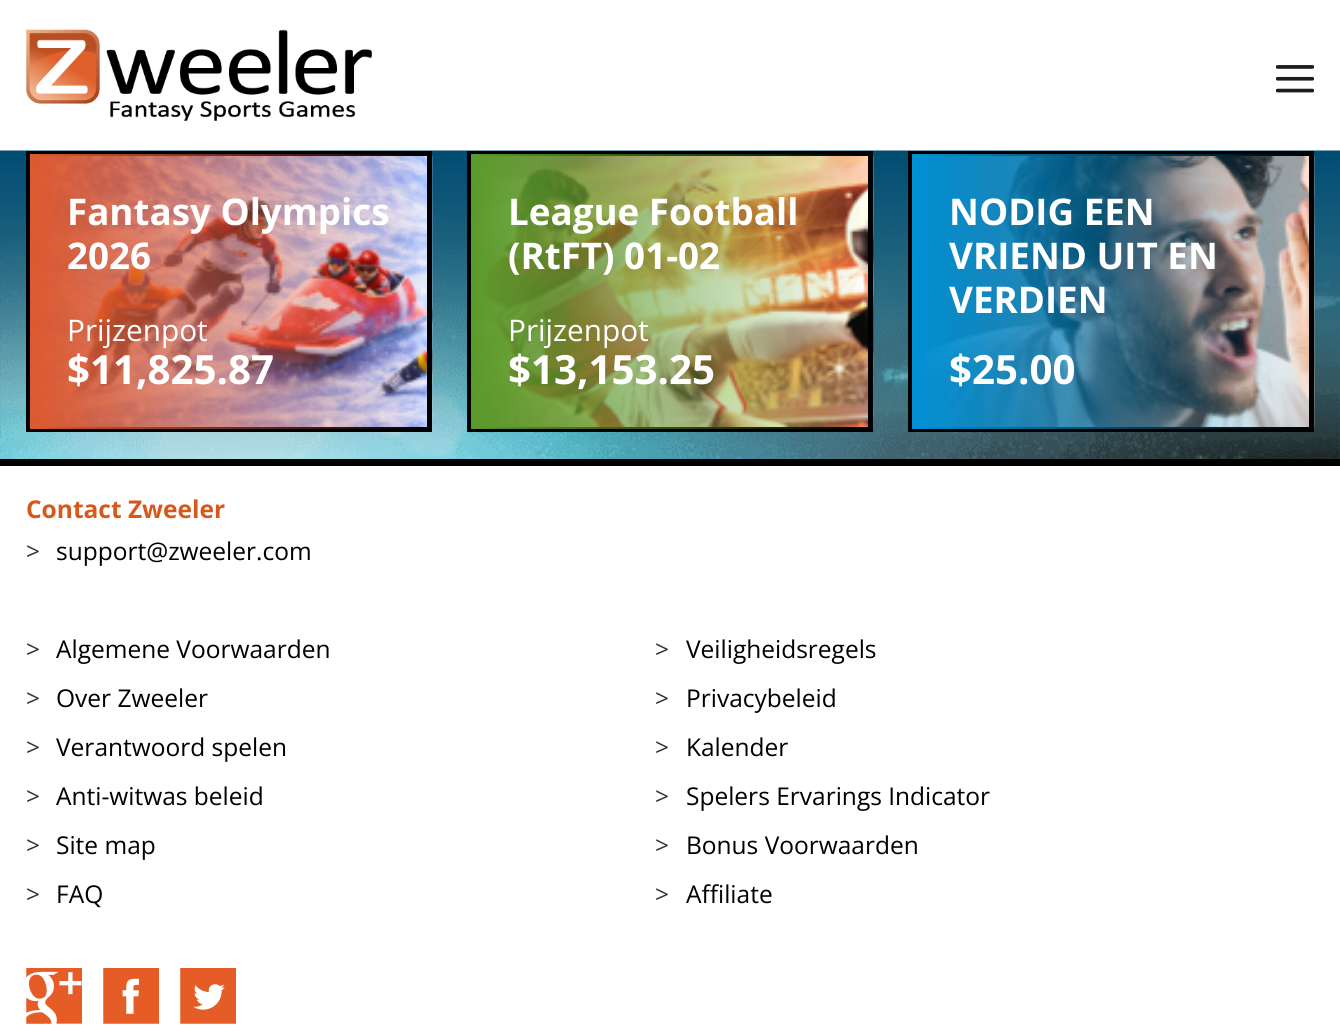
import math
import cairo

surface = cairo.ImageSurface(cairo.Format.RGB24, 1340, 1030)
ctx = cairo.Context(surface)
options = cairo.FontOptions()
options.set_hint_metrics(cairo.HintMetrics.OFF)
options.set_hint_style(cairo.HintStyle.NONE)
ctx.set_font_options(options)
ctx.set_miter_limit(4)


def ink(r, g, b):
    ctx.set_source_rgb(r / 255, g / 255, b / 255)


def write(x, y, s, family, size, color, bold=False, italic=False):
    ctx.select_font_face(family, cairo.FontSlant.ITALIC if italic else cairo.FontSlant.NORMAL, cairo.FontWeight.BOLD if bold else cairo.FontWeight.NORMAL)
    ctx.set_font_size(size)
    ink(*color)
    ctx.move_to(x, y)
    ctx.show_text(s)


def block(x, y, w, h, *color):
    ink(*color)
    ctx.rectangle(x, y, w, h)
    ctx.fill()


def paste(path, x, y, w, h):
    ctx.save()
    ctx.set_source_surface(cairo.ImageSurface.create_from_png(path), x, y)
    ctx.rectangle(x, y, w, h)
    ctx.fill()
    ctx.restore()


s1 = dict(family="Open Sans", size=36.75, color=(255, 255, 255), bold=True)
s2 = dict(family="Open Sans", size=29.75, color=(255, 255, 255))
s3 = dict(family="Open Sans", size=40.25, color=(255, 255, 255), bold=True)
s4 = dict(family="Open Sans", size=24.5, color=(215, 88, 27), bold=True)
s5 = dict(family="Open Sans", size=24.5, color=(51, 51, 51))
s6 = dict(family="Open Sans", size=24.5, color=(0, 0, 0))

ink(255, 255, 255)
ctx.paint()
paste("pic1.png", 26, 29, 346, 92)
paste("pic2.png", 1276, 65, 38, 28)
block(0, 152, 1340, 307, 87, 142, 151)
paste("pic3.png", 0, 150, 1340, 309)
paste("pic4.png", 32, 155, 401, 272)
ctx.rectangle(28.5, 153.5, 401, 276)
ink(0, 0, 0)
ctx.set_line_width(5)
ctx.stroke()
gradient = cairo.LinearGradient(30, 291, 429, 291)
gradient.add_color_stop_rgba(0, 0.871, 0.349, 0.18, 1)
gradient.add_color_stop_rgba(1, 0.871, 0.349, 0.18, 0)
ctx.set_source(gradient)
ctx.rectangle(30, 154, 390, 275)
ctx.fill()
write(67, 225, "Fantasy Olympics", **s1)
write(67, 269, "2026", **s1)
write(67, 341, "Prijzenpot", **s2)
write(67, 384, "$11,825.87", **s3)
paste("pic5.png", 473, 155, 401, 272)
ctx.rectangle(469.5, 153.5, 401, 276)
ink(0, 0, 0)
ctx.stroke()
gradient = cairo.LinearGradient(471, 291, 870, 291)
gradient.add_color_stop_rgba(0, 0.353, 0.604, 0.169, 1)
gradient.add_color_stop_rgba(1, 0.353, 0.604, 0.169, 0)
ctx.set_source(gradient)
ctx.rectangle(471, 154, 390, 275)
ctx.fill()
write(508, 225, "League Football", **s1)
write(508, 269, "(RtFT) 01-02", **s1)
write(508, 341, "Prijzenpot", **s2)
write(508, 384, "$13,153.25", **s3)
paste("pic6.png", 914, 155, 401, 272)
ctx.rectangle(910.5, 153.5, 401, 276)
ink(0, 0, 0)
ctx.stroke()
gradient = cairo.LinearGradient(912, 291, 1311, 291)
gradient.add_color_stop_rgba(0, 0, 0.565, 0.831, 1)
gradient.add_color_stop_rgba(1, 0, 0.565, 0.831, 0)
ctx.set_source(gradient)
ctx.rectangle(912, 154, 390, 275)
ctx.fill()
write(949, 225, "NODIG EEN", **s1)
write(949, 269, "VRIEND UIT EN", **s1)
write(949, 313, "VERDIEN", **s1)
write(949, 384, "$25.00", **s3)
block(0, 459, 1340, 7, 0, 0, 0)
write(26, 518, "Contact Zweeler", **s4)
write(26, 560, ">", **s5)
write(56, 560, "support@zweeler.com", **s6)
write(26, 658, ">", **s5)
write(56, 658, "Algemene Voorwaarden", **s6)
write(655, 658, ">", **s5)
write(686, 658, "Veiligheidsregels", **s6)
write(26, 707, ">", **s5)
write(56, 707, "Over Zweeler", **s6)
write(655, 707, ">", **s5)
write(686, 707, "Privacybeleid", **s6)
write(26, 756, ">", **s5)
write(56, 756, "Verantwoord spelen", **s6)
write(655, 756, ">", **s5)
write(686, 756, "Kalender", **s6)
write(26, 805, ">", **s5)
write(56, 805, "Anti-witwas beleid", **s6)
write(655, 805, ">", **s5)
write(686, 805, "Spelers Ervarings Indicator", **s6)
write(26, 854, ">", **s5)
write(56, 854, "Site map", **s6)
write(655, 854, ">", **s5)
write(686, 854, "Bonus Voorwaarden", **s6)
write(26, 903, ">", **s5)
write(56, 903, "FAQ", **s6)
write(655, 903, ">", **s5)
write(686, 903, "Affiliate", **s6)
paste("pic7.png", 26, 968, 56, 56)
paste("pic8.png", 103, 968, 56, 56)
paste("pic9.png", 180, 968, 56, 56)
surface.write_to_png("screenshot.png")
